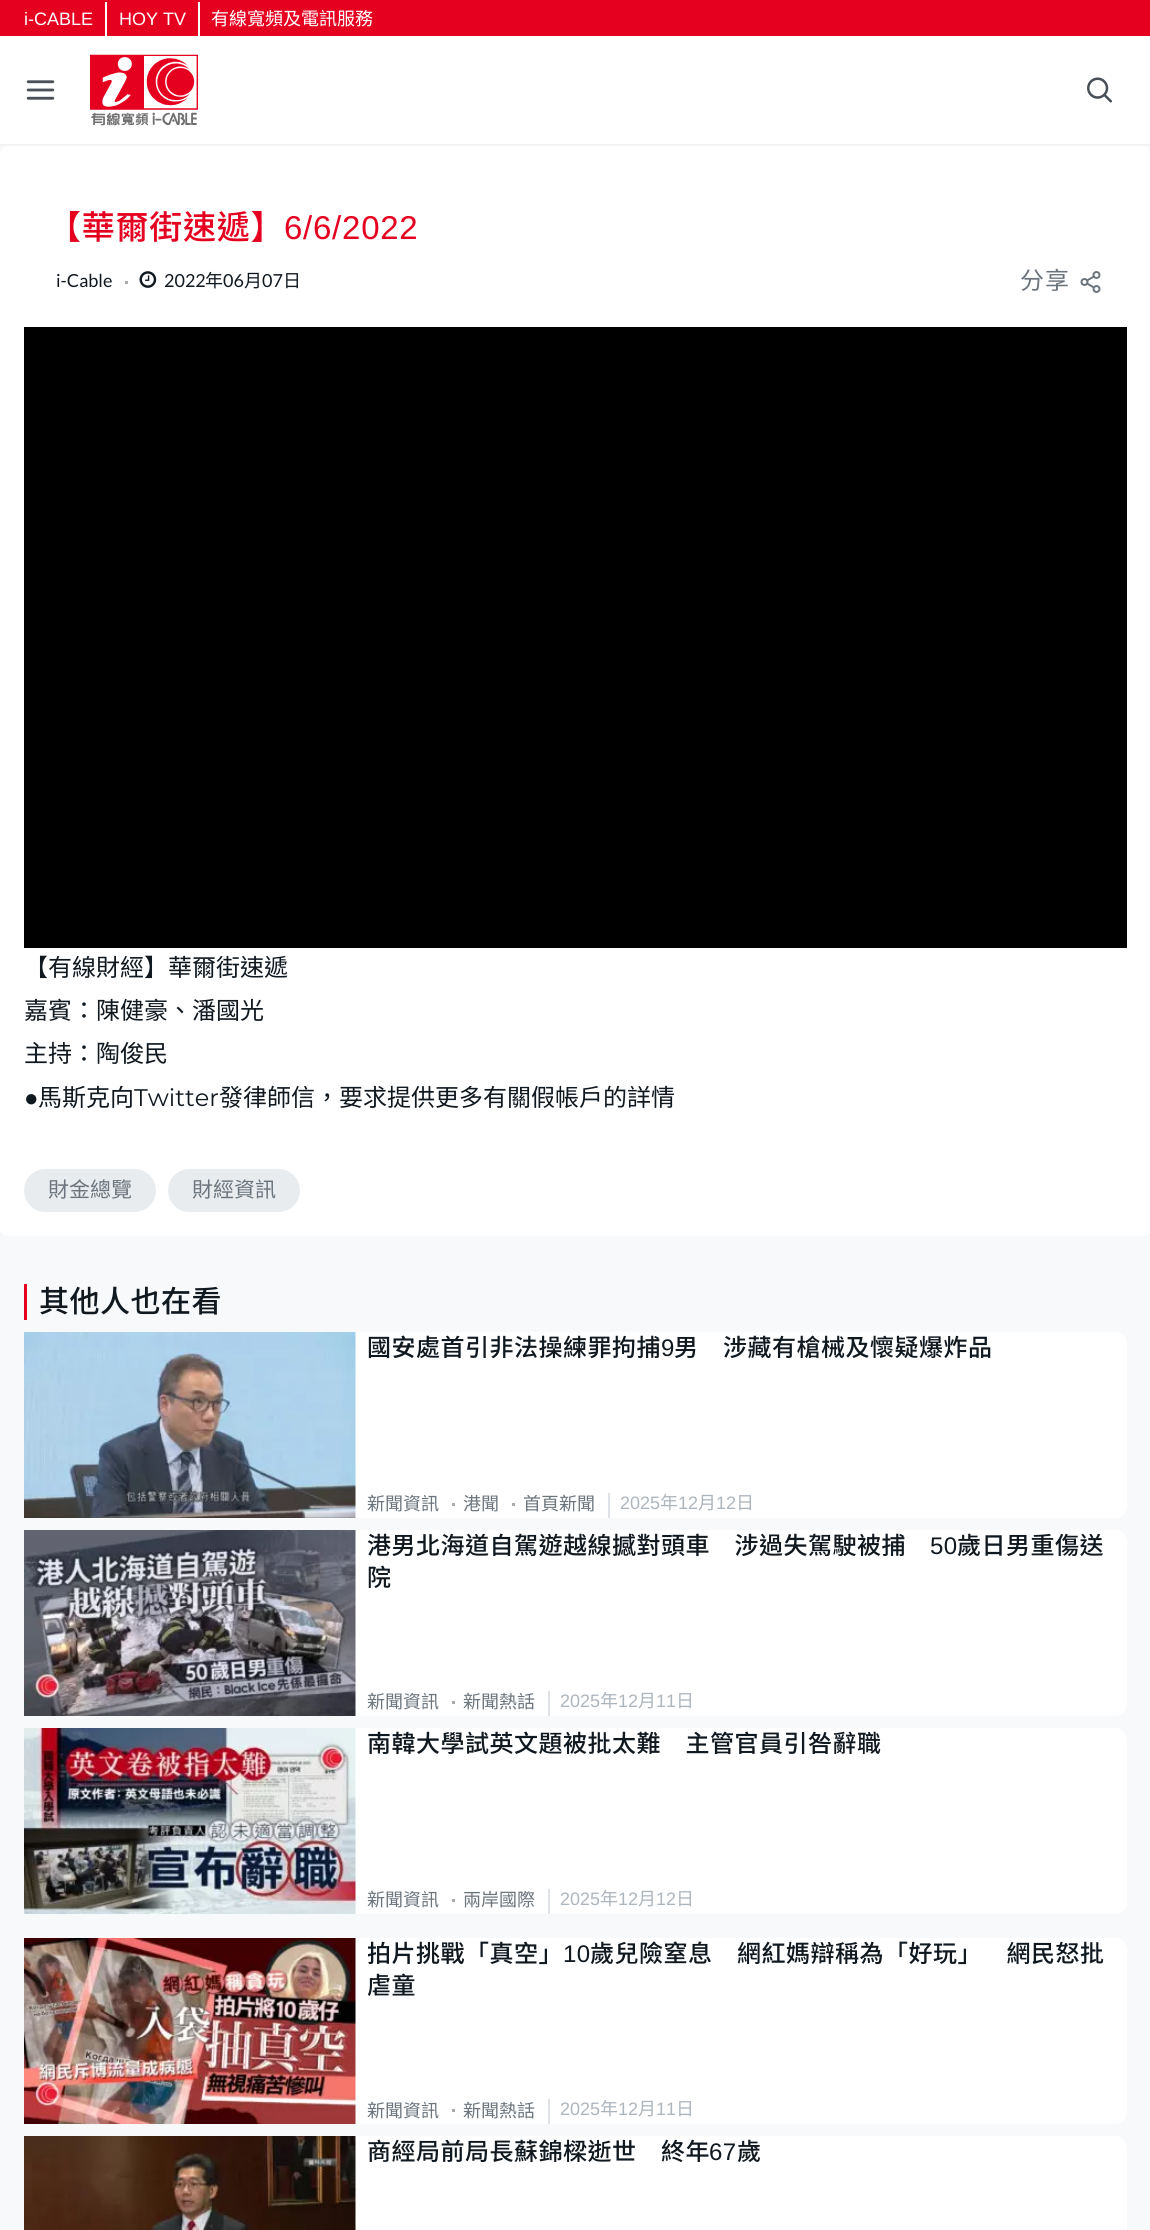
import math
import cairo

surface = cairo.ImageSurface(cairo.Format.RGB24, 1150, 2230)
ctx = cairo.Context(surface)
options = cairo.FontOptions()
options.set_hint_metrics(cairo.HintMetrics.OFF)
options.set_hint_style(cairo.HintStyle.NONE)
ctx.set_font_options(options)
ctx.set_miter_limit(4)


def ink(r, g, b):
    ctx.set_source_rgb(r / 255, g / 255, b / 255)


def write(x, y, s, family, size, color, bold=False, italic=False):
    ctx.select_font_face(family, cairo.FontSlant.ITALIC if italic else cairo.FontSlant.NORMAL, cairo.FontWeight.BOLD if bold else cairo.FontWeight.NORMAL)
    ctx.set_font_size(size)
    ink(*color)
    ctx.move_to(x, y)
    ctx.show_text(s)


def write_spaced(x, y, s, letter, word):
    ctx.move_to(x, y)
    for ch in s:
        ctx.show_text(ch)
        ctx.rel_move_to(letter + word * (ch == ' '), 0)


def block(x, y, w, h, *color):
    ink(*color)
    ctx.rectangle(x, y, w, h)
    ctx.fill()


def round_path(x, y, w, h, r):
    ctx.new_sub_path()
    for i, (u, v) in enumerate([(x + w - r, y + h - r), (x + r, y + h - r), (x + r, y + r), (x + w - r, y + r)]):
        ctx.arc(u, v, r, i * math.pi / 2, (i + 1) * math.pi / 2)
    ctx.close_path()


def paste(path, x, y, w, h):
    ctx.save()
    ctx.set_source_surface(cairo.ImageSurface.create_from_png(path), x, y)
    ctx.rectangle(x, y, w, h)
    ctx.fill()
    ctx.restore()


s1 = dict(family="Liberation Sans", size=18, color=(255, 255, 255))
s2 = dict(family="Noto Sans CJK HK", size=18, color=(255, 255, 255))
s3 = dict(family="Lato", size=18, color=(16, 24, 32))
s4 = dict(family="Noto Sans CJK HK", size=18, color=(16, 24, 32))
s5 = dict(family="Noto Sans CJK HK", size=24, color=(16, 24, 32))
s6 = dict(family="Liberation Sans", size=24, color=(16, 24, 32))
s7 = dict(family="Montserrat", size=24, color=(16, 24, 32))
s8 = dict(family="Noto Sans CJK HK", size=21, color=(108, 117, 125))
s9 = dict(family="Noto Sans HK", size=18, color=(108, 117, 125))
s10 = dict(family="Liberation Sans", size=18, color=(173, 181, 189))
s11 = dict(family="Noto Sans HK", size=18, color=(173, 181, 189))

ink(255, 255, 255)
ctx.paint()
block(0, 144, 1150, 2, 243, 243, 243)
block(0, 0, 1150, 36, 229, 0, 32)
block(105, 2, 2, 34, 255, 255, 255)
write(24, 25, "i-CABLE", **s1)
block(198, 2, 2, 34, 255, 255, 255)
write(119, 25, "HOY TV", **s1)
write(211, 25, "有線寬頻及電訊服務", **s2)
paste("pic1.png", 26, 80, 29, 20)
paste("pic2.png", 90, 54, 108, 72)
paste("pic3.png", 1087, 77, 25, 26)
block(0, 146, 1150, 2084, 248, 249, 250)
ink(255, 255, 255)
round_path(0, 146, 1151, 1090, 8)
ctx.fill()
ctx.select_font_face("Noto Sans HK Medium")
ctx.set_font_size(33)
ink(229, 0, 32)
write_spaced(48, 239, "【華爾街速遞】", 0.75, 0)
ctx.select_font_face("Liberation Sans")
write_spaced(284, 239, "6/6/2022", 0.75, 0)
write(56, 287, "i-Cable", **s3)
block(125, 281, 3, 3, 170, 170, 170)
paste("pic4.png", 139, 271, 18, 17)
write(164, 287, "2022", **s3)
write(205, 287, "年", **s4)
write(223, 287, "06", **s3)
write(244, 287, "月", **s4)
write(262, 287, "07", **s3)
write(283, 287, "日", **s4)
ctx.select_font_face("Noto Sans HK")
ctx.set_font_size(24)
ink(108, 117, 125)
write_spaced(1020, 289, "分享", 1, 0)
paste("pic5.png", 1080, 271, 21, 22)
block(24, 327, 1103, 621, 0, 0, 0)
write(24, 976, "【有線財經】華爾街速遞", **s5)
write(24, 1019, "嘉賓：陳健豪、潘國光", **s5)
write(24, 1062, "主持：陶俊民", **s5)
write(24, 1106, "●", **s6)
write(38, 1106, "馬斯克向", **s5)
write(134, 1106, "Twitter", **s7)
write(219, 1106, "發律師信，要求提供更多有關假帳戶的詳情", **s5)
ink(233, 236, 239)
round_path(24, 1169, 132, 43, 21.5)
ctx.fill()
write(48, 1197, "財金總覽", **s8)
ink(233, 236, 239)
round_path(168, 1169, 132, 43, 21.5)
ctx.fill()
write(192, 1197, "財經資訊", **s8)
block(24, 1284, 3, 36, 229, 0, 32)
ctx.select_font_face("Noto Sans HK Medium")
ctx.set_font_size(30)
ink(16, 24, 32)
write_spaced(39, 1312, "其他人也在看", 0.5, 0)
ink(255, 255, 255)
round_path(24, 1332, 1103, 186, 12)
ctx.fill()
paste("pic6.png", 24, 1332, 332, 186)
ctx.set_font_size(24)
ink(16, 24, 32)
write_spaced(367, 1356, "國安處首引非法操練罪拘捕", 0.5, 0)
ctx.select_font_face("Liberation Sans")
write_spaced(661, 1356, "9", 0.5, 0)
ctx.select_font_face("Noto Sans HK Medium")
write_spaced(674, 1356, "男　涉藏有槍械及懷疑爆炸品", 0.5, 0)
block(608, 1493, 2, 25, 222, 226, 230)
write(367, 1510, "新聞資訊", **s9)
block(452, 1503, 3, 3, 170, 170, 170)
write(463, 1510, "港聞", **s9)
block(512, 1503, 3, 3, 170, 170, 170)
write(523, 1510, "首頁新聞", **s9)
write(620, 1509, "2025", **s10)
write(660, 1509, "年", **s11)
write(678, 1509, "12", **s10)
write(698, 1509, "月", **s11)
write(716, 1509, "12", **s10)
write(736, 1509, "日", **s11)
ink(255, 255, 255)
round_path(24, 1530, 1103, 186, 12)
ctx.fill()
paste("pic7.png", 24, 1530, 332, 186)
ctx.select_font_face("Noto Sans HK Medium")
ctx.set_font_size(24)
ink(16, 24, 32)
write_spaced(367, 1554, "港男北海道自駕遊越線撼對頭車　涉過失駕駛被捕", 0.5, 0)
ctx.select_font_face("Liberation Sans")
write_spaced(930, 1554, "50", 0.5, 0)
ctx.select_font_face("Noto Sans HK Medium")
write_spaced(957, 1554, "歲日男重傷送", 0.5, 0)
write_spaced(367, 1586, "院", 0.5, 0)
block(548, 1691, 2, 25, 222, 226, 230)
write(367, 1708, "新聞資訊", **s9)
block(452, 1701, 3, 3, 170, 170, 170)
write(463, 1708, "新聞熱話", **s9)
write(560, 1707, "2025", **s10)
write(600, 1707, "年", **s11)
write(618, 1707, "12", **s10)
write(638, 1707, "月", **s11)
write(656, 1707, "11", **s10)
write(676, 1707, "日", **s11)
ink(255, 255, 255)
round_path(24, 1728, 1103, 186, 12)
ctx.fill()
paste("pic8.png", 24, 1728, 332, 186)
ctx.select_font_face("Noto Sans HK Medium")
ctx.set_font_size(24)
ink(16, 24, 32)
write_spaced(367, 1752, "南韓大學試英文題被批太難　主管官員引咎辭職", 0.5, 0)
block(548, 1889, 2, 25, 222, 226, 230)
write(367, 1906, "新聞資訊", **s9)
block(452, 1899, 3, 3, 170, 170, 170)
write(463, 1906, "兩岸國際", **s9)
write(560, 1905, "2025", **s10)
write(600, 1905, "年", **s11)
write(618, 1905, "12", **s10)
write(638, 1905, "月", **s11)
write(656, 1905, "12", **s10)
write(676, 1905, "日", **s11)
ink(255, 255, 255)
round_path(24, 1938, 1103, 186, 12)
ctx.fill()
paste("pic9.png", 24, 1938, 332, 186)
ctx.save()
ctx.rectangle(368, 1938, 759, 63)
ctx.clip()
ctx.select_font_face("Noto Sans HK Medium")
ctx.set_font_size(24)
ink(16, 24, 32)
write_spaced(367, 1962, "拍片挑戰「真空」", 0.5, 0)
ctx.restore()
ctx.select_font_face("Liberation Sans")
ctx.set_font_size(24)
ink(16, 24, 32)
write_spaced(563, 1962, "10", 0.5, 0)
ctx.select_font_face("Noto Sans HK Medium")
write_spaced(590, 1962, "歲兒險窒息　網紅媽辯稱為「好玩」　網民怒批", 0.5, 0)
write_spaced(367, 1994, "虐童", 0.5, 0)
block(548, 2099, 2, 25, 222, 226, 230)
write(367, 2117, "新聞資訊", **s9)
block(452, 2109, 3, 3, 170, 170, 170)
write(463, 2117, "新聞熱話", **s9)
write(560, 2115, "2025", **s10)
write(600, 2115, "年", **s11)
write(618, 2115, "12", **s10)
write(638, 2115, "月", **s11)
write(656, 2115, "11", **s10)
write(676, 2115, "日", **s11)
ink(255, 255, 255)
round_path(24, 2136, 1103, 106, 12)
ctx.fill()
paste("pic10.png", 24, 2136, 332, 94)
ctx.select_font_face("Noto Sans HK Medium")
ctx.set_font_size(24)
ink(16, 24, 32)
write_spaced(367, 2160, "商經局前局長蘇錦樑逝世　終年", 0.5, 0)
ctx.select_font_face("Liberation Sans")
write_spaced(709, 2160, "67", 0.5, 0)
ctx.select_font_face("Noto Sans HK Medium")
write_spaced(737, 2160, "歲", 0.5, 0)
surface.write_to_png("screenshot.png")
